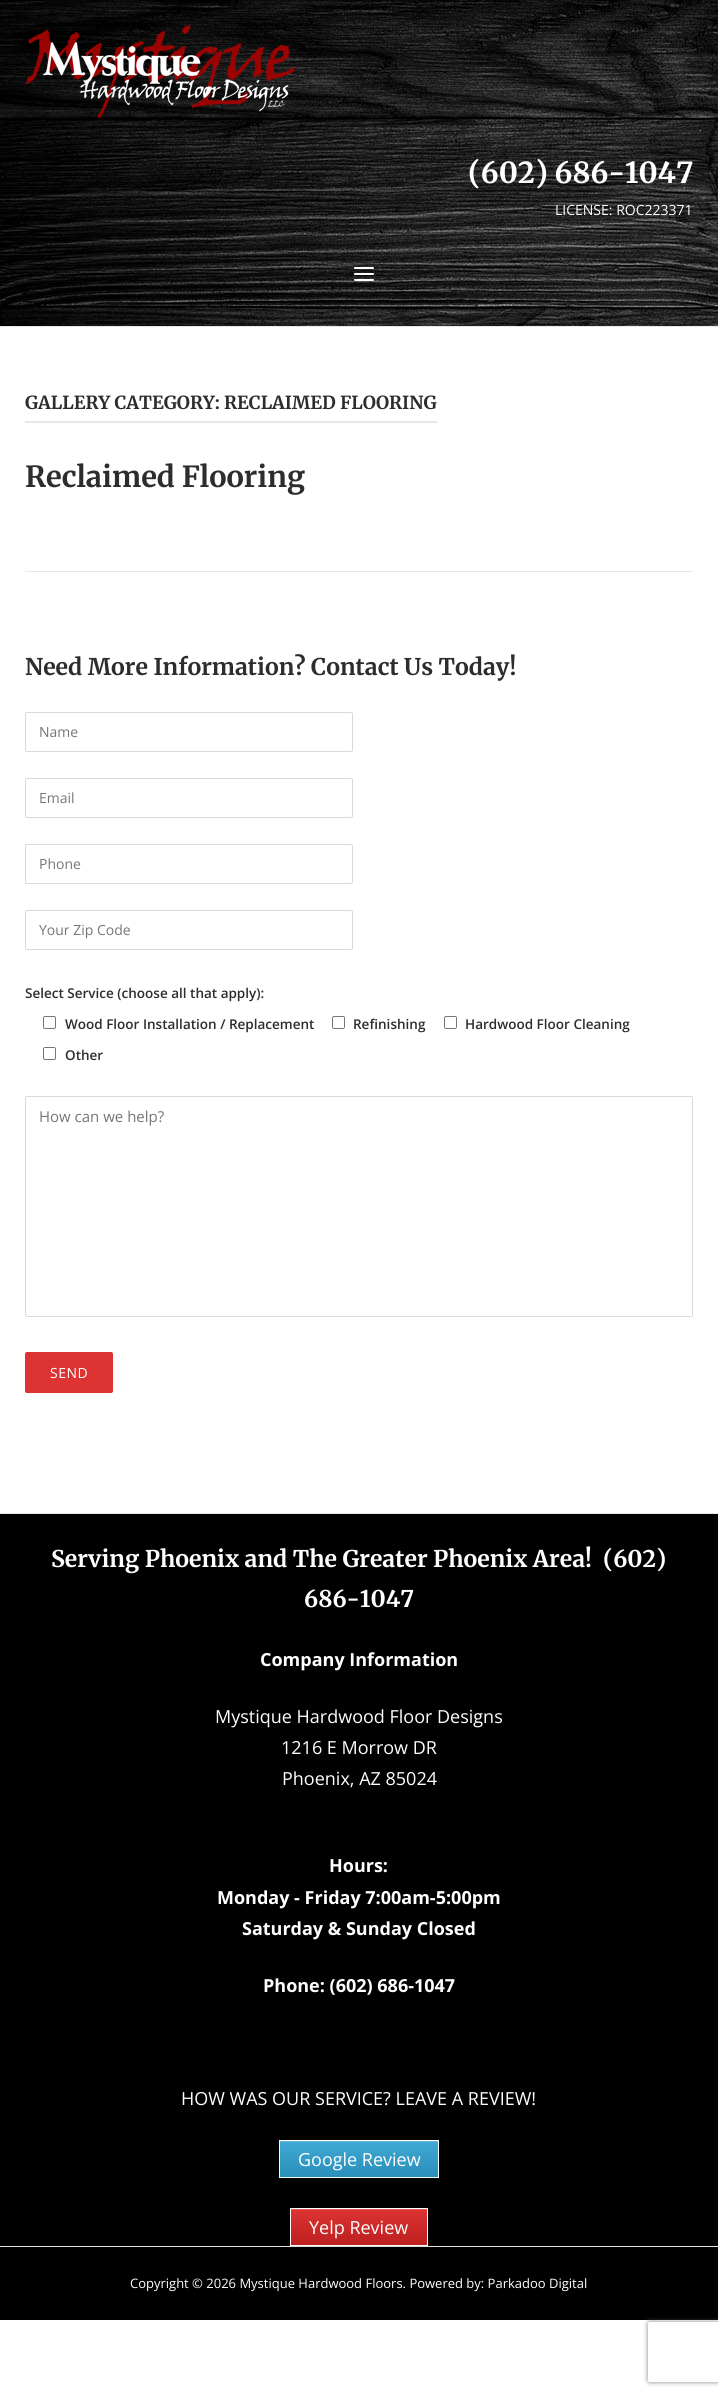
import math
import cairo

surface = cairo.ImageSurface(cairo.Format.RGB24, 718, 2396)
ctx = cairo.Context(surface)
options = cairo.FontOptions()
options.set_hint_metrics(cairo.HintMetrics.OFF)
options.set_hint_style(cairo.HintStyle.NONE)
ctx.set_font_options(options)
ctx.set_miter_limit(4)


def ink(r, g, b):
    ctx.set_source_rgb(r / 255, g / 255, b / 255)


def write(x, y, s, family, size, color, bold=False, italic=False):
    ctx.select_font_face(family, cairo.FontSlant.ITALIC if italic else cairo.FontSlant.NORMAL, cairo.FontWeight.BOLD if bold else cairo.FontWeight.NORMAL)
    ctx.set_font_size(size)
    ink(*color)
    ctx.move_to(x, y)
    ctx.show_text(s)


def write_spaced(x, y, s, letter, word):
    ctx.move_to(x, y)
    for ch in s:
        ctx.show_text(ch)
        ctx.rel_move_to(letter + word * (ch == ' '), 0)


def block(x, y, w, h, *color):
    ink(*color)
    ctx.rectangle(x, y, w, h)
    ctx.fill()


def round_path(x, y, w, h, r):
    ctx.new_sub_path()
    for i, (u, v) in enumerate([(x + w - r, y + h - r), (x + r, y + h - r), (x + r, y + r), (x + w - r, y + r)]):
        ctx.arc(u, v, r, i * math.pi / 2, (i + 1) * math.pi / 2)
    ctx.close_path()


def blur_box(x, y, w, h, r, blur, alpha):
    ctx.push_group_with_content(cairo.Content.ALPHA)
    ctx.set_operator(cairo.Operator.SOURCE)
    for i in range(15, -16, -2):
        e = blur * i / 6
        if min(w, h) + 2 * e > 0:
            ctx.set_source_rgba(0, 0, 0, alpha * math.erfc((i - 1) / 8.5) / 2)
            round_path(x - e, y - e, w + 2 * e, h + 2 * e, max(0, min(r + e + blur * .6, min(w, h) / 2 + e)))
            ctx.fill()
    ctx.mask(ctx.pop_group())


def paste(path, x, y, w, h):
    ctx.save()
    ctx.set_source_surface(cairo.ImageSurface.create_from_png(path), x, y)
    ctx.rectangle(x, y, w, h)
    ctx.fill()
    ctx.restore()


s1 = dict(family="Merriweather", size=29, color=(255, 255, 255), bold=True)
s2 = dict(family="Open Sans", size=14, color=(255, 255, 255))
s3 = dict(family="Merriweather", size=18, color=(45, 45, 45), bold=True)
s4 = dict(family="Merriweather", size=29, color=(45, 45, 45), bold=True)
s5 = dict(family="Merriweather", size=23, color=(45, 45, 45), bold=True)
s6 = dict(family="Open Sans", size=14, color=(117, 117, 117))
s7 = dict(family="Open Sans SemiBold", size=13.5, color=(45, 45, 45))
s8 = dict(family="Open Sans", size=15, color=(117, 117, 117))
s9 = dict(family="Merriweather", size=23, color=(255, 255, 255), bold=True)
s10 = dict(family="Open Sans", size=18, color=(255, 255, 255), bold=True)
s11 = dict(family="Open Sans", size=18, color=(255, 255, 255))
s12 = dict(family="Open Sans", size=13, color=(255, 255, 255))

ink(255, 255, 255)
ctx.paint()
paste("pic1.png", 0, 0, 718, 326)
block(0, 326, 718, 1, 230, 230, 230)
paste("pic2.png", 25, 25, 270, 93)
write(468, 183, "(602) 686-1047", **s1)
write(555, 215, "LICENSE: ROC223371", **s2)
round_path(354, 267, 20, 2, 1)
ctx.fill()
round_path(354, 273, 20, 2, 1)
ctx.fill()
round_path(354, 279, 20, 2, 1)
ctx.fill()
block(25, 421, 412, 2, 230, 230, 230)
write(25, 409, "GALLERY CATEGORY: RECLAIMED FLOORING", **s3)
write(25, 487, "Reclaimed Flooring", **s4)
block(25, 571, 668, 1, 230, 230, 230)
write(25, 675, "Need More Information? Contact Us Today!", **s5)
round_path(25.5, 712.5, 327, 39, 1.5)
ink(217, 217, 217)
ctx.set_line_width(1)
ctx.stroke()
write(39, 737, "Name", **s6)
round_path(25.5, 778.5, 327, 39, 1.5)
ink(217, 217, 217)
ctx.stroke()
write(39, 803, "Email", **s6)
round_path(25.5, 844.5, 327, 39, 1.5)
ink(217, 217, 217)
ctx.stroke()
write(39, 869, "Phone", **s6)
round_path(25.5, 910.5, 327, 39, 1.5)
ink(217, 217, 217)
ctx.stroke()
write(39, 935, "Your Zip Code", **s6)
write(25, 998, "Select Service (choose all that apply):", **s7)
round_path(43.5, 1016.5, 12, 12, 1.5)
ink(118, 118, 118)
ctx.stroke()
write(65, 1029, "Wood Floor Installation / Replacement", **s7)
round_path(332.5, 1016.5, 12, 12, 1.5)
ink(118, 118, 118)
ctx.stroke()
write(353, 1029, "Refinishing", **s7)
round_path(444.5, 1016.5, 12, 12, 1.5)
ink(118, 118, 118)
ctx.stroke()
write(465, 1029, "Hardwood Floor Cleaning", **s7)
round_path(43.5, 1047.5, 12, 12, 1.5)
ink(118, 118, 118)
ctx.stroke()
write(65, 1060, "Other", **s7)
round_path(25.5, 1096.5, 667, 220, 1.5)
ink(217, 217, 217)
ctx.stroke()
write(39, 1122, "How can we help?", **s8)
ink(221, 51, 51)
round_path(25, 1352, 88, 41, 2)
ctx.fill()
ctx.set_font_size(14)
ink(255, 255, 255)
write_spaced(50, 1378, "SEND", 0.5, 0)
block(0, 1513, 718, 1, 230, 230, 230)
block(0, 1514, 718, 732, 0, 0, 0)
write(51, 1567, "Serving Phoenix and The Greater Phoenix Area!", **s9)
write(603, 1567, "(602)", **s9)
write(304, 1607, "686-1047", **s9)
write(260, 1666, "Company Information", **s10)
write(215, 1723, "Mystique Hardwood Floor Designs", **s11)
write(281, 1754, "1216 E Morrow DR", **s11)
write(282, 1785, "Phoenix, AZ 85024", **s11)
write(329, 1872, "Hours:", **s10)
write(217, 1904, "Monday - Friday 7:00am-5:00pm", **s10)
write(242, 1935, "Saturday & Sunday Closed", **s10)
write(263, 1992, "Phone: (602) 686-1047", **s10)
write(181, 2105, "HOW WAS OUR SERVICE? LEAVE A REVIEW!", **s11)
gradient = cairo.LinearGradient(280, 2177, 280, 2141)
gradient.add_color_stop_rgba(0, 0.161, 0.561, 0.729, 1)
gradient.add_color_stop_rgba(1, 0.255, 0.663, 0.835, 1)
ctx.set_source(gradient)
ctx.rectangle(280, 2142, 158, 35)
ctx.fill()
block(280, 2141, 158, 1, 103, 186, 221)
ctx.rectangle(279.5, 2140.5, 159, 37)
ink(255, 255, 255)
ctx.stroke()
write(298, 2166, "Google Review", **s11)
block(0, 2247, 718, 73, 0, 0, 0)
block(0, 2246, 718, 1, 230, 230, 230)
ink(0, 0, 0)
blur_box(290, 2209, 138, 38, 0, 1, 0.07)
gradient = cairo.LinearGradient(291, 2245, 291, 2209)
gradient.add_color_stop_rgba(0, 0.741, 0.125, 0.125, 1)
gradient.add_color_stop_rgba(1, 0.867, 0.2, 0.2, 1)
ctx.set_source(gradient)
ctx.rectangle(291, 2210, 136, 35)
ctx.fill()
block(291, 2209, 136, 1, 228, 92, 92)
ctx.rectangle(290.5, 2208.5, 137, 37)
ink(255, 255, 255)
ctx.stroke()
write(309, 2234, "Yelp Review", **s11)
write(130, 2288, "Copyright © 2026 Mystique Hardwood Floors. Powered by: Parkadoo Digital", **s12)
ctx.save()
ctx.set_fill_rule(cairo.FillRule.EVEN_ODD)
ctx.new_path()
ctx.move_to(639, 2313)
ctx.line_to(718, 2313)
ctx.line_to(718, 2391)
ctx.line_to(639, 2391)
ctx.close_path()
ctx.move_to(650, 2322)
ctx.line_to(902, 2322)
ctx.curve_to(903, 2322, 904, 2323, 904, 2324)
ctx.line_to(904, 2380)
ctx.curve_to(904, 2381, 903, 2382, 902, 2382)
ctx.line_to(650, 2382)
ctx.curve_to(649, 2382, 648, 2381, 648, 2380)
ctx.line_to(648, 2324)
ctx.curve_to(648, 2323, 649, 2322, 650, 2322)
ctx.close_path()
ctx.clip()
ink(128, 128, 128)
blur_box(648, 2322, 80, 60, 2, 2.5, 1)
ctx.restore()
surface.write_to_png("screenshot.png")
